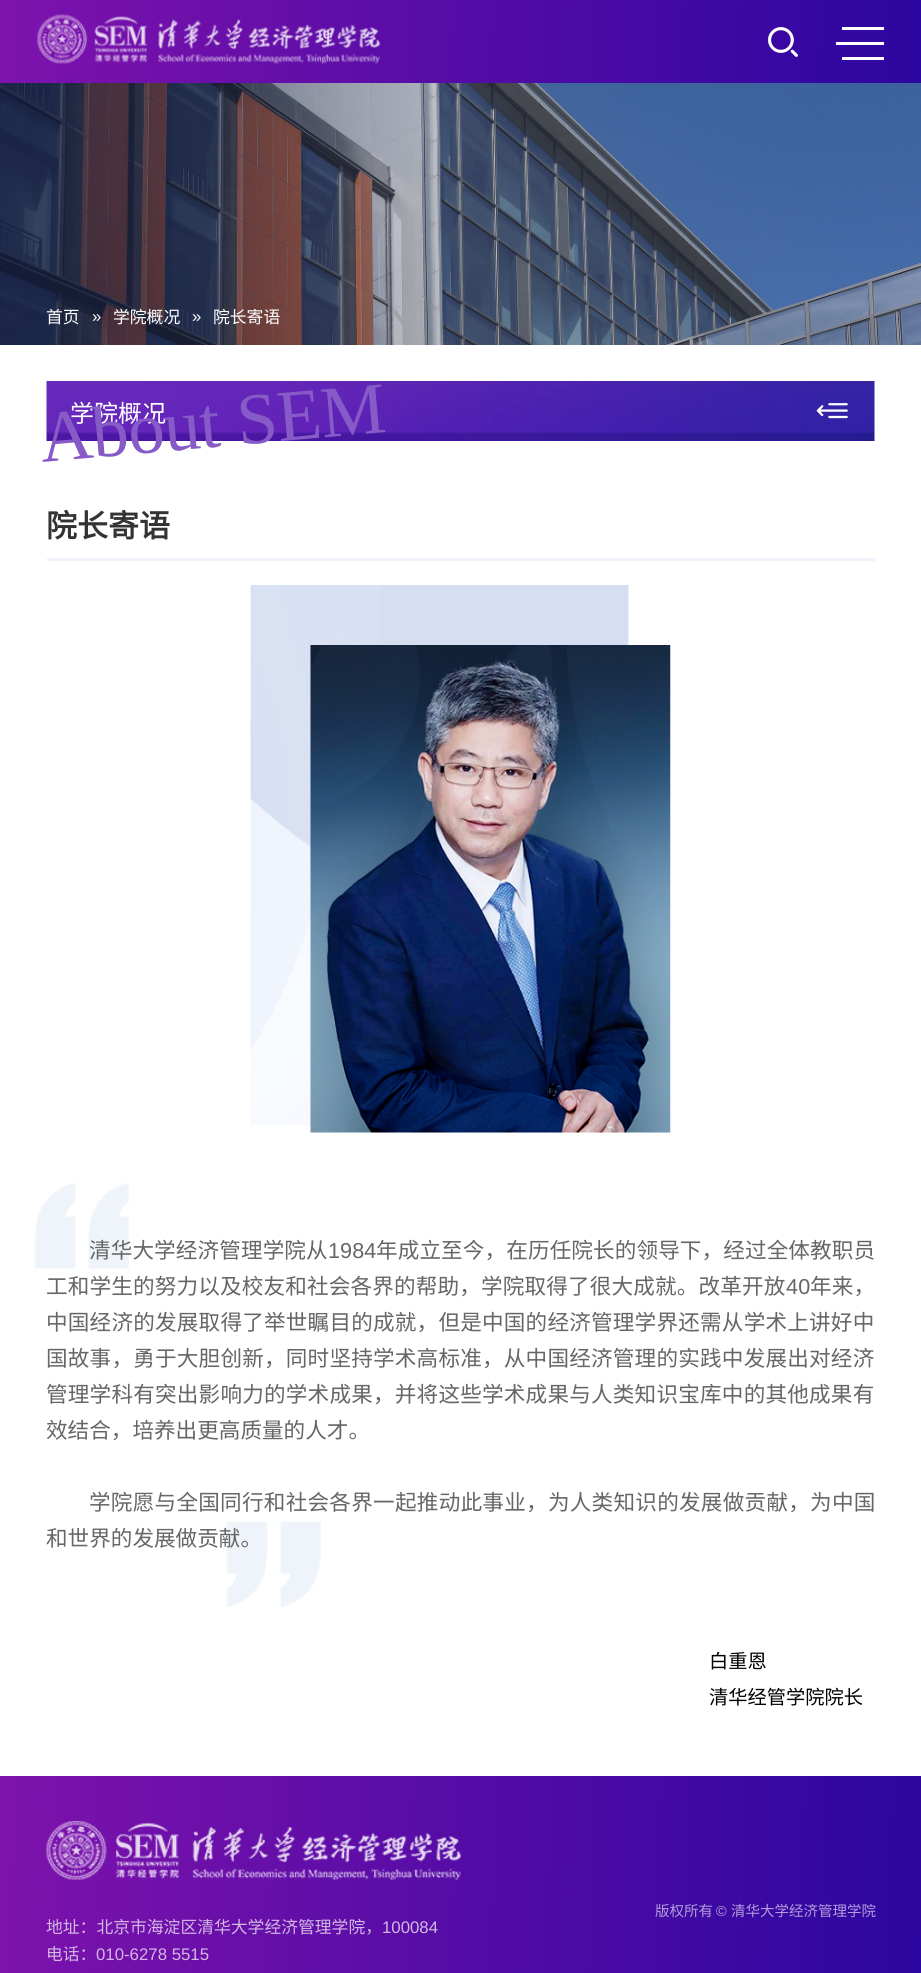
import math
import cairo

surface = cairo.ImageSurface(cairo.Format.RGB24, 921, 1973)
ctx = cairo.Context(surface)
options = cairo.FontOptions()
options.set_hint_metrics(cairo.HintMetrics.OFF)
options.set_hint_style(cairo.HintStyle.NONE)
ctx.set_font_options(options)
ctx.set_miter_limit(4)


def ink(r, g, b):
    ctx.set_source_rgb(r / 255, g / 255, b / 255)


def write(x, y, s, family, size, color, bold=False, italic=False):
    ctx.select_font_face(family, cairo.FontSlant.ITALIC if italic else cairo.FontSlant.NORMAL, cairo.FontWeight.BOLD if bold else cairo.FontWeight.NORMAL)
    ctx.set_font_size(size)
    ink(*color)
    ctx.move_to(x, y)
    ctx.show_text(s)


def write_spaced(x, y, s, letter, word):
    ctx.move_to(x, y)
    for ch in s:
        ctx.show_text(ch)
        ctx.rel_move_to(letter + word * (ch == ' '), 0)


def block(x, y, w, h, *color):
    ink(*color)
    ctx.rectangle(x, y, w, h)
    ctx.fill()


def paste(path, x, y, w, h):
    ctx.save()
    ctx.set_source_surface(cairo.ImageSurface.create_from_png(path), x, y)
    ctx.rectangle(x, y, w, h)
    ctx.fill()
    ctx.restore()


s1 = dict(family="Noto Sans CJK SC", size=16.8, color=(255, 255, 255))
s2 = dict(family="Liberation Sans", size=16.8, color=(255, 255, 255))
s3 = dict(family="Noto Sans CJK SC", size=24, color=(255, 255, 255))
s4 = dict(family="Noto Sans CJK SC", size=31, color=(51, 51, 51), bold=True)
s5 = dict(family="Noto Sans CJK SC", size=21.6, color=(102, 102, 102))
s6 = dict(family="Noto Sans CJK SC", size=19.25, color=(0, 0, 0))
s7 = dict(family="Noto Sans CJK SC", size=14.5, color=(179, 157, 218))
s8 = dict(family="Liberation Sans", size=14.5, color=(179, 157, 218))
s9 = dict(family="Noto Sans CJK SC", size=16.8, color=(210, 183, 229))
s10 = dict(family="Liberation Sans", size=16.8, color=(210, 183, 229))

ink(255, 255, 255)
ctx.paint()
gradient = cairo.LinearGradient(-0.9, 25, 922, 57)
gradient.add_color_stop_rgba(0, 0.494, 0.071, 0.675, 1)
gradient.add_color_stop_rgba(1, 0.173, 0.024, 0.627, 1)
ctx.set_source(gradient)
ctx.rectangle(0, 0, 921, 83)
ctx.fill()
paste("pic1.png", 37, 14, 343, 50)
paste("pic2.png", 768, 27, 30, 30)
block(842, 27, 42, 3, 255, 255, 255)
block(836, 42, 48, 3, 255, 255, 255)
block(842, 57, 42, 3, 255, 255, 255)
paste("pic3.png", 0, 83, 921, 262)
write(46, 323, "首页", **s1)
write(92, 322, "»", **s2)
write(113, 323, "学院概况", **s1)
write(192, 322, "»", **s2)
write(213, 323, "院长寄语", **s1)
paste("pic4.png", 46, 381, 829, 60)
write(70, 422, "学院概况", **s3)
ctx.select_font_face("Liberation Serif")
ctx.set_font_size(73)
ink(134, 90, 199)
ctx.save()
ctx.translate(42, 462)
ctx.rotate(-5 * math.pi / 180)
write_spaced(0, 0, "About SEM", -0.5, 0)
ctx.restore()
paste("pic5.png", 816, 403, 32, 16)
block(47, 558, 828, 3, 238, 242, 251)
write(46, 537, "院长寄语", **s4)
paste("pic6.png", 250, 585, 379, 540)
paste("pic7.png", 310, 645, 361, 488)
paste("pic8.png", 34, 1183, 95, 86)
ctx.select_font_face("Noto Sans CJK SC")
ctx.set_font_size(21.6)
ink(102, 102, 102)
write_spaced(89, 1258, "清华大学经济管理学院从", 0.1, 0)
ctx.select_font_face("Liberation Sans")
write_spaced(328, 1258, "1984", 0.1, 0)
ctx.select_font_face("Noto Sans CJK SC")
write_spaced(376, 1258, "年成立至今，在历任院长的领导下，经过全体教职员", 0.1, 0)
write_spaced(46, 1294, "工和学生的努力以及校友和社会各界的帮助，学院取得了很大成就。改革开放", 0.15, 0)
ctx.select_font_face("Liberation Sans")
write_spaced(786, 1294, "40", 0.15, 0)
ctx.select_font_face("Noto Sans CJK SC")
write_spaced(810, 1294, "年来，", 0.15, 0)
write_spaced(46, 1330, "中国经济的发展取得了举世瞩目的成就，但是中国的经济管理学界还需从学术上讲好中", 0.2, 0)
write_spaced(46, 1366, "国故事，勇于大胆创新，同时坚持学术高标准，从中国经济管理的实践中发展出对经济", 0.2, 0)
write_spaced(46, 1402, "管理学科有突出影响力的学术成果，并将这些学术成果与人类知识宝库中的其他成果有", 0.2, 0)
write(46, 1438, "效结合，培养出更高质量的人才。", **s5)
write_spaced(89, 1510, "学院愿与全国同行和社会各界一起推动此事业，为人类知识的发展做贡献，为中国", 0.25, 0)
paste("pic9.png", 226, 1521, 95, 86)
write(46, 1546, "和世界的发展做贡献。", **s5)
write(709, 1668, "白重恩", **s6)
write(709, 1704, "清华经管学院院长", **s6)
gradient = cairo.LinearGradient(-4.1, 1893, 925, 1926)
gradient.add_color_stop_rgba(0, 0.494, 0.071, 0.675, 1)
gradient.add_color_stop_rgba(1, 0.173, 0.024, 0.627, 1)
ctx.set_source(gradient)
ctx.rectangle(0, 1776, 921, 197)
ctx.fill()
write(655, 1916, "版权所有", **s7)
write(716, 1916, "©", **s8)
write(731, 1916, "清华大学经济管理学院", **s7)
paste("pic10.png", 46, 1821, 415, 59)
write(46, 1933, "地址：北京市海淀区清华大学经济管理学院，", **s9)
write(382, 1933, "100084", **s10)
write(46, 1960, "电话：", **s9)
write(96, 1960, "010-6278 5515", **s10)
surface.write_to_png("screenshot.png")
